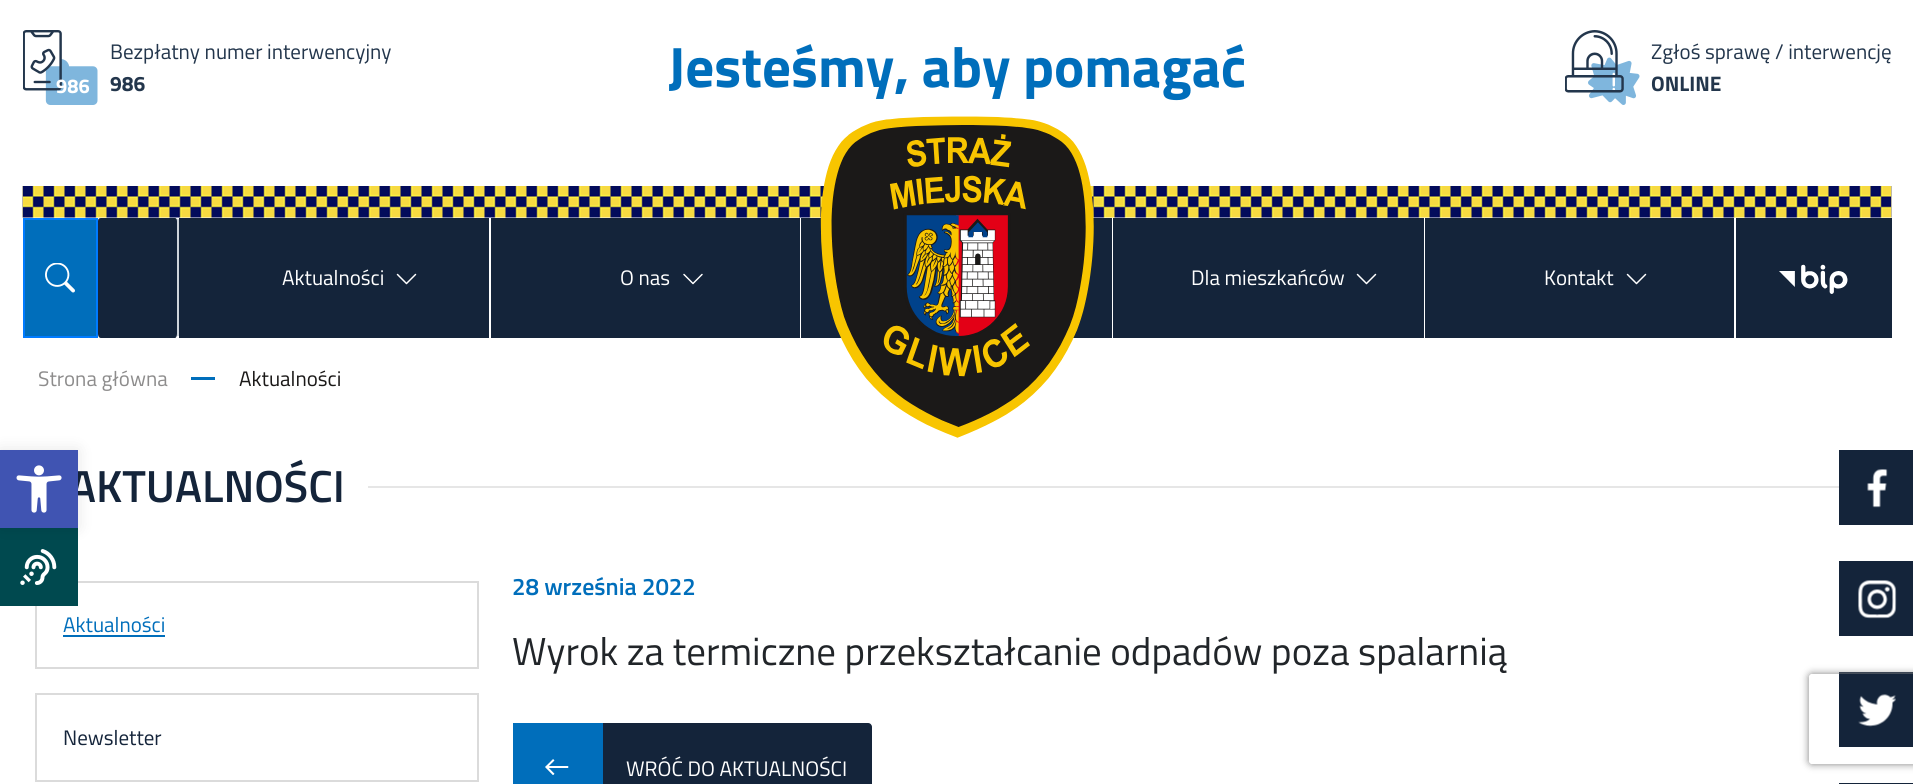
import math
import cairo

surface = cairo.ImageSurface(cairo.Format.RGB24, 1913, 784)
ctx = cairo.Context(surface)
options = cairo.FontOptions()
options.set_hint_metrics(cairo.HintMetrics.OFF)
options.set_hint_style(cairo.HintStyle.NONE)
ctx.set_font_options(options)
ctx.set_miter_limit(4)


def ink(r, g, b):
    ctx.set_source_rgb(r / 255, g / 255, b / 255)


def write(x, y, s, family, size, color, bold=False, italic=False):
    ctx.select_font_face(family, cairo.FontSlant.ITALIC if italic else cairo.FontSlant.NORMAL, cairo.FontWeight.BOLD if bold else cairo.FontWeight.NORMAL)
    ctx.set_font_size(size)
    ink(*color)
    ctx.move_to(x, y)
    ctx.show_text(s)


def block(x, y, w, h, *color):
    ink(*color)
    ctx.rectangle(x, y, w, h)
    ctx.fill()


def round_path(x, y, w, h, r):
    ctx.new_sub_path()
    for i, (u, v) in enumerate([(x + w - r, y + h - r), (x + r, y + h - r), (x + r, y + r), (x + w - r, y + r)]):
        ctx.arc(u, v, r, i * math.pi / 2, (i + 1) * math.pi / 2)
    ctx.close_path()


def blur_box(x, y, w, h, r, blur, alpha):
    ctx.push_group_with_content(cairo.Content.ALPHA)
    ctx.set_operator(cairo.Operator.SOURCE)
    for i in range(15, -16, -2):
        e = blur * i / 6
        if min(w, h) + 2 * e > 0:
            ctx.set_source_rgba(0, 0, 0, alpha * math.erfc((i - 1) / 8.5) / 2)
            round_path(x - e, y - e, w + 2 * e, h + 2 * e, max(0, min(r + e + blur * .6, min(w, h) / 2 + e)))
            ctx.fill()
    ctx.mask(ctx.pop_group())


def paste(path, x, y, w, h):
    ctx.save()
    ctx.set_source_surface(cairo.ImageSurface.create_from_png(path), x, y)
    ctx.rectangle(x, y, w, h)
    ctx.fill()
    ctx.restore()


s1 = dict(family="Titillium Web", size=20, color=(255, 255, 255), bold=True)
s2 = dict(family="Titillium Web", size=21, color=(35, 54, 76))
s3 = dict(family="Titillium Web", size=21, color=(35, 54, 76), bold=True)
s4 = dict(family="Titillium Web", size=57, color=(0, 110, 187), bold=True)
s5 = dict(family="Titillium Web", size=21, color=(255, 255, 255))
s6 = dict(family="Titillium Web", size=21, color=(141, 140, 140))
s7 = dict(family="Titillium Web", size=21, color=(27, 25, 24))
s8 = dict(family="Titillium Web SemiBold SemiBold", size=45, color=(20, 36, 58))
s9 = dict(family="Titillium Web", size=21, color=(0, 110, 187))
s10 = dict(family="Titillium Web", size=21, color=(20, 36, 58))
s11 = dict(family="Titillium Web SemiBold SemiBold", size=24, color=(0, 110, 187))
s12 = dict(family="Titillium Web", size=39, color=(33, 37, 41))

ink(255, 255, 255)
ctx.paint()
paste("pic1.png", 23, 30, 75, 75)
write(56, 93, "986", **s1)
write(110, 59, "Bezpłatny numer interwencyjny", **s2)
write(110, 91, "986", **s3)
write(668, 87, "Jesteśmy, aby pomagać", **s4)
paste("pic2.png", 1565, 30, 75, 75)
write(1651, 59, "Zgłoś sprawę / interwencję", **s2)
write(1651, 91, "ONLINE", **s3)
paste("pic3.png", 22, 186, 1870, 32)
ink(0, 110, 187)
ctx.rectangle(24, 219, 73, 118)
ctx.fill_preserve()
ink(0, 123, 255)
ctx.stroke()
paste("pic4.png", 45, 263, 30, 30)
ink(20, 36, 58)
ctx.new_path()
ctx.move_to(101, 218)
ctx.line_to(175, 218)
ctx.curve_to(176, 218, 177, 219, 177, 221)
ctx.line_to(177, 334)
ctx.curve_to(177, 336, 176, 338, 175, 338)
ctx.line_to(101, 338)
ctx.curve_to(99, 338, 98, 336, 98, 334)
ctx.line_to(98, 221)
ctx.curve_to(98, 219, 99, 218, 101, 218)
ctx.close_path()
ctx.fill()
block(177, 219, 2, 117, 206, 212, 218)
block(179, 218, 310, 120, 20, 36, 58)
write(282, 285, "Aktualności", **s5)
paste("pic5.png", 396, 273, 21, 12)
block(491, 218, 309, 120, 20, 36, 58)
write(620, 285, "O nas", **s5)
paste("pic6.png", 683, 273, 20, 12)
block(801, 218, 311, 120, 20, 36, 58)
paste("pic7.png", 820, 116, 274, 322)
block(1113, 218, 311, 120, 20, 36, 58)
write(1191, 285, "Dla mieszkańców", **s5)
paste("pic5.png", 1356, 273, 21, 12)
block(1425, 218, 309, 120, 20, 36, 58)
write(1544, 285, "Kontakt", **s5)
paste("pic5.png", 1626, 273, 21, 12)
block(1736, 218, 156, 120, 20, 36, 58)
paste("pic8.png", 1779, 264, 69, 30)
write(38, 386, "Strona główna", **s6)
block(191, 377, 24, 3, 0, 110, 187)
write(239, 386, "Aktualności", **s7)
write(69, 502, "AKTUALNOŚCI", **s8)
block(368, 486, 1471, 2, 230, 230, 230)
ctx.rectangle(36, 582, 442, 86)
ink(219, 219, 219)
ctx.stroke()
write(63, 632, "Aktualności", **s9)
block(63, 635, 102, 2, 0, 110, 187)
ctx.rectangle(36, 694, 442, 87)
ink(219, 219, 219)
ctx.stroke()
write(63, 745, "Newsletter", **s10)
write(512, 595, "28 września 2022", **s11)
write(512, 665, "Wyrok za termiczne przekształcanie odpadów poza spalarnią", **s12)
ink(20, 36, 58)
round_path(513, 723, 359, 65, 4)
ctx.fill()
block(513, 723, 90, 61, 0, 110, 187)
paste("pic9.png", 545, 759, 24, 16)
write(626, 776, "WRÓĆ DO AKTUALNOŚCI", **s5)
block(0, 528, 78, 78, 0, 73, 79)
paste("pic14.png", 20, 549, 37, 36)
ink(0, 0, 0)
blur_box(0, 450, 78, 78, 0, 7.5, 0.1)
block(0, 450, 78, 78, 64, 84, 178)
paste("pic10.png", 16, 465, 46, 48)
block(1839, 450, 74, 75, 20, 36, 58)
paste("pic11.png", 1867, 469, 21, 39)
block(1839, 561, 74, 75, 20, 36, 58)
paste("pic12.png", 1858, 580, 39, 39)
block(1839, 672, 74, 75, 20, 36, 58)
paste("pic13.png", 1858, 694, 38, 33)
block(1839, 783, 74, 1, 20, 36, 58)
ctx.save()
ctx.set_fill_rule(cairo.FillRule.EVEN_ODD)
ctx.new_path()
ctx.move_to(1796, 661)
ctx.line_to(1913, 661)
ctx.line_to(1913, 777)
ctx.line_to(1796, 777)
ctx.close_path()
ctx.move_to(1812, 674)
ctx.line_to(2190, 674)
ctx.curve_to(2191.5, 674, 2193, 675.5, 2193, 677)
ctx.line_to(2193, 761)
ctx.curve_to(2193, 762.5, 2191.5, 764, 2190, 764)
ctx.line_to(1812, 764)
ctx.curve_to(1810.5, 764, 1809, 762.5, 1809, 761)
ctx.line_to(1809, 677)
ctx.curve_to(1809, 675.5, 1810.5, 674, 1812, 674)
ctx.close_path()
ctx.clip()
ink(128, 128, 128)
blur_box(1809, 674, 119, 90, 3, 4, 1)
ctx.restore()
surface.write_to_png("screenshot.png")
